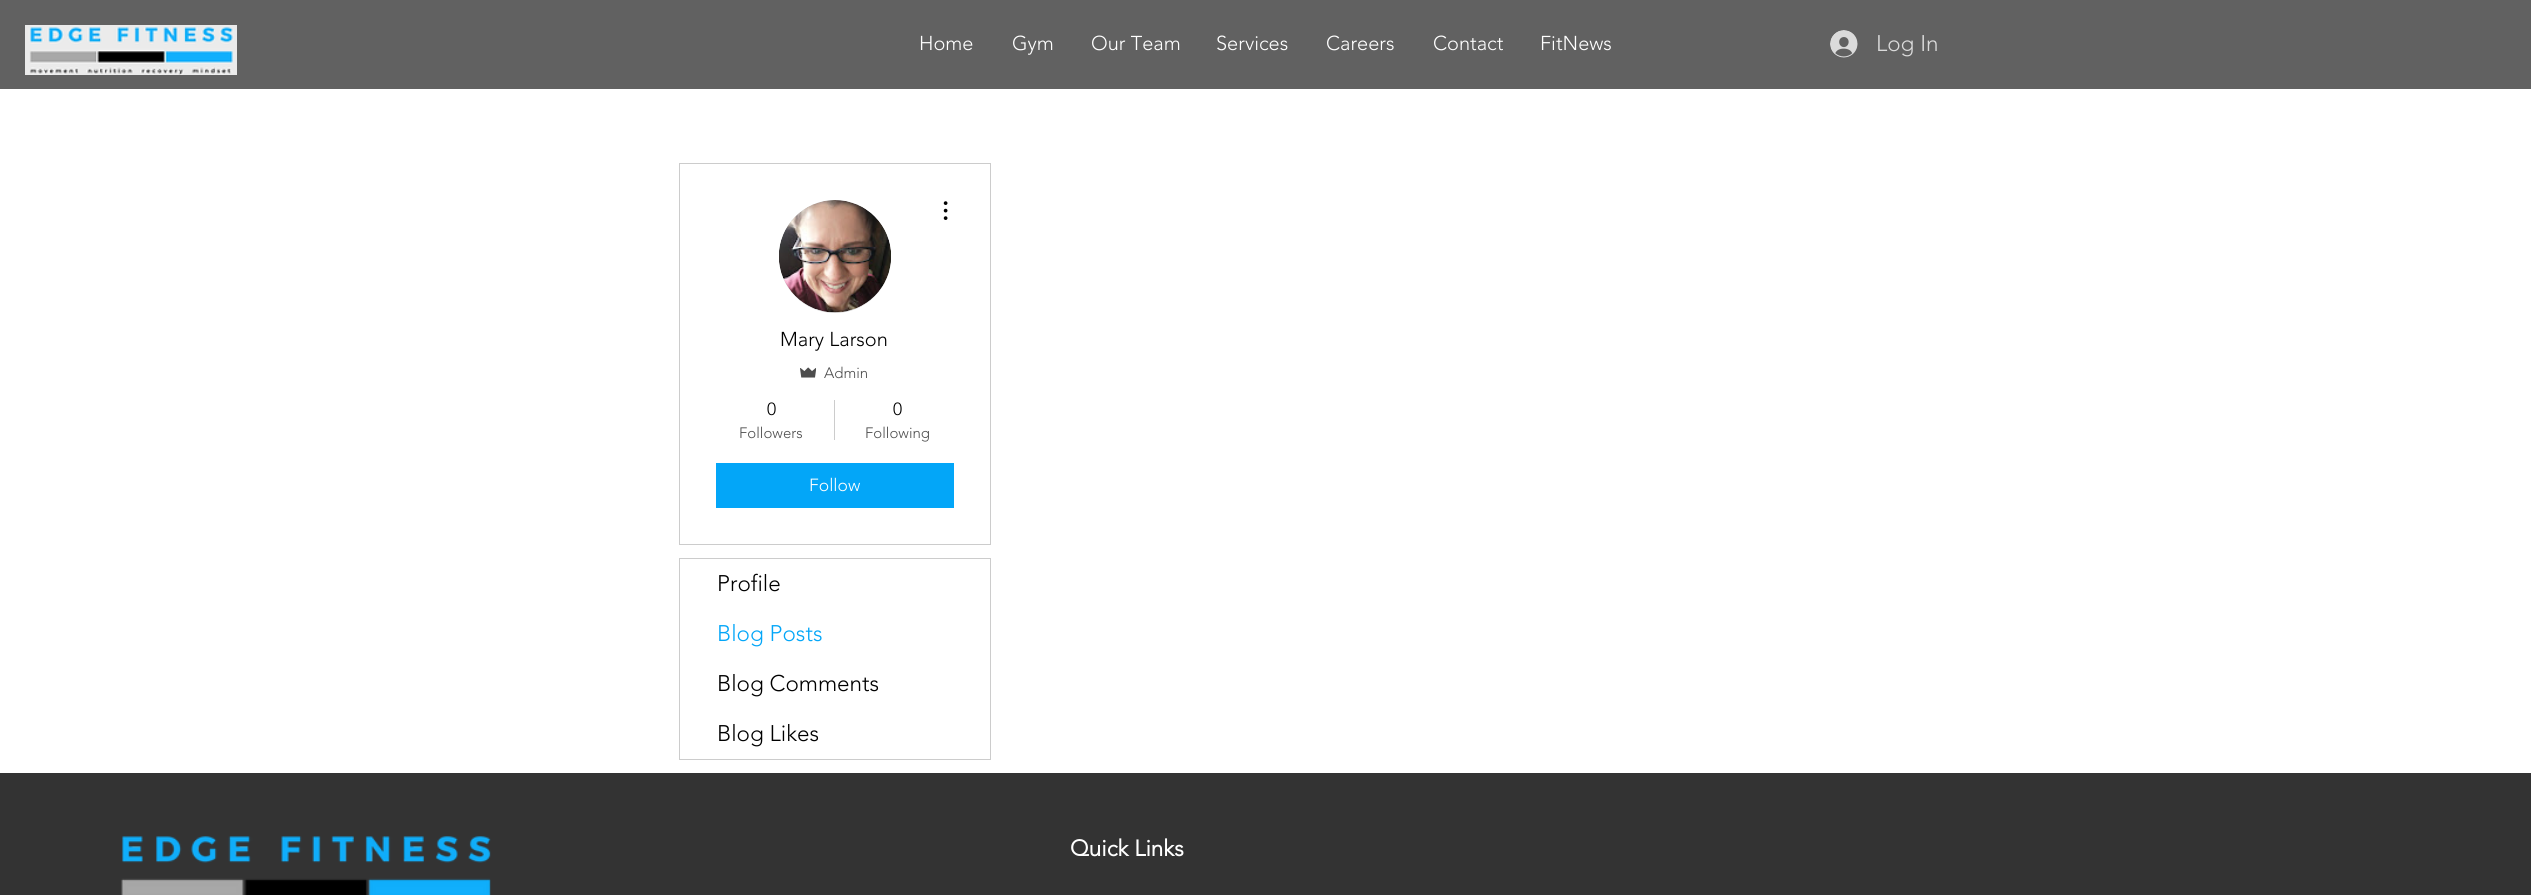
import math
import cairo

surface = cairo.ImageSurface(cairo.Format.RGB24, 2531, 895)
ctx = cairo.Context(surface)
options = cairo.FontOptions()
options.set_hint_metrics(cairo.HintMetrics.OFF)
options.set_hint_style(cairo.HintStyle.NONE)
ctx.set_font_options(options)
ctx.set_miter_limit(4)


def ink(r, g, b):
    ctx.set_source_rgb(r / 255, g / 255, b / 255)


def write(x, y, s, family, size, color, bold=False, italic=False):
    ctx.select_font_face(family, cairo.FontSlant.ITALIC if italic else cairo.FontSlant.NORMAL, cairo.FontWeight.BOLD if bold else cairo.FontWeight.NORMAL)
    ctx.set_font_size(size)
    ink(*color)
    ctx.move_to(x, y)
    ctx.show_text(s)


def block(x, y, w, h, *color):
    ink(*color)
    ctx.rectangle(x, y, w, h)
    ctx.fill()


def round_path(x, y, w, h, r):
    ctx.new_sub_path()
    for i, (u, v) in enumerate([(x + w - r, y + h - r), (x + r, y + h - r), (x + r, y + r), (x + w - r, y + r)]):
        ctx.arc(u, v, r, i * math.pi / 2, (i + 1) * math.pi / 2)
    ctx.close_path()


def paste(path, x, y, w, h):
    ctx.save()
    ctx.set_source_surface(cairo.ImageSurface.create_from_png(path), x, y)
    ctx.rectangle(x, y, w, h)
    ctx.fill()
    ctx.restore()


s1 = dict(family="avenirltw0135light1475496 Light", size=20, color=(255, 255, 255))
s2 = dict(family="avenirltw0135light1475496 Light", size=22.5, color=(219, 219, 219))
s3 = dict(family="avenirltw0135light1475496 Light", size=20, color=(0, 0, 0))
s4 = dict(family="avenirltw0135light1475496 Light", size=15, color=(77, 77, 77))
s5 = dict(family="avenirltw0135light1475496 Light", size=17.5, color=(0, 0, 0))
s6 = dict(family="avenirltw0135light1475496 Light", size=17.5, color=(255, 255, 255))
s7 = dict(family="avenirltw0135light1475496 Light", size=22.5, color=(0, 0, 0))
s8 = dict(family="avenirltw0135light1475496 Light", size=22.5, color=(3, 166, 248))
s9 = dict(family="avenirltw0135light1475496", size=22.5, color=(255, 255, 255), bold=True)

ink(255, 255, 255)
ctx.paint()
block(0, 0, 2531, 89, 97, 97, 97)
paste("pic1.png", 25, 25, 212, 50)
write(919, 50, "Home", **s1)
write(1012, 50, "Gym", **s1)
write(1091, 50, "Our Team", **s1)
write(1216, 50, "Services", **s1)
write(1326, 50, "Careers", **s1)
write(1433, 50, "Contact", **s1)
write(1540, 50, "FitNews", **s1)
paste("pic2.png", 1830, 30, 28, 28)
write(1876, 51, "Log In", **s2)
ctx.rectangle(679.5, 163.5, 311, 381)
ink(204, 204, 204)
ctx.set_line_width(1)
ctx.stroke()
ink(216, 216, 216)
round_path(779, 200, 112, 113, 56)
ctx.fill()
paste("pic3.png", 779, 200, 112, 113)
paste("pic4.png", 943, 201, 5, 19)
write(780, 346, "Mary Larson", **s3)
paste("pic5.png", 800, 367, 16, 11)
write(824, 378, "Admin", **s4)
write(767, 415, "0", **s5)
write(739, 438, "Followers", **s4)
block(834, 400, 1, 40, 204, 204, 204)
write(893, 415, "0", **s5)
write(865, 438, "Following", **s4)
block(716, 463, 238, 45, 3, 166, 248)
write(809, 491, "Follow", **s6)
ctx.rectangle(679.5, 558.5, 311, 201)
ink(204, 204, 204)
ctx.stroke()
write(717, 591, "Profile", **s7)
write(717, 641, "Blog Posts", **s8)
write(717, 691, "Blog Comments", **s7)
write(717, 741, "Blog Likes", **s7)
block(0, 773, 2531, 122, 51, 51, 51)
paste("pic6.png", 121, 836, 370, 59)
write(1070, 856, "Quick Links", **s9)
surface.write_to_png("screenshot.png")
